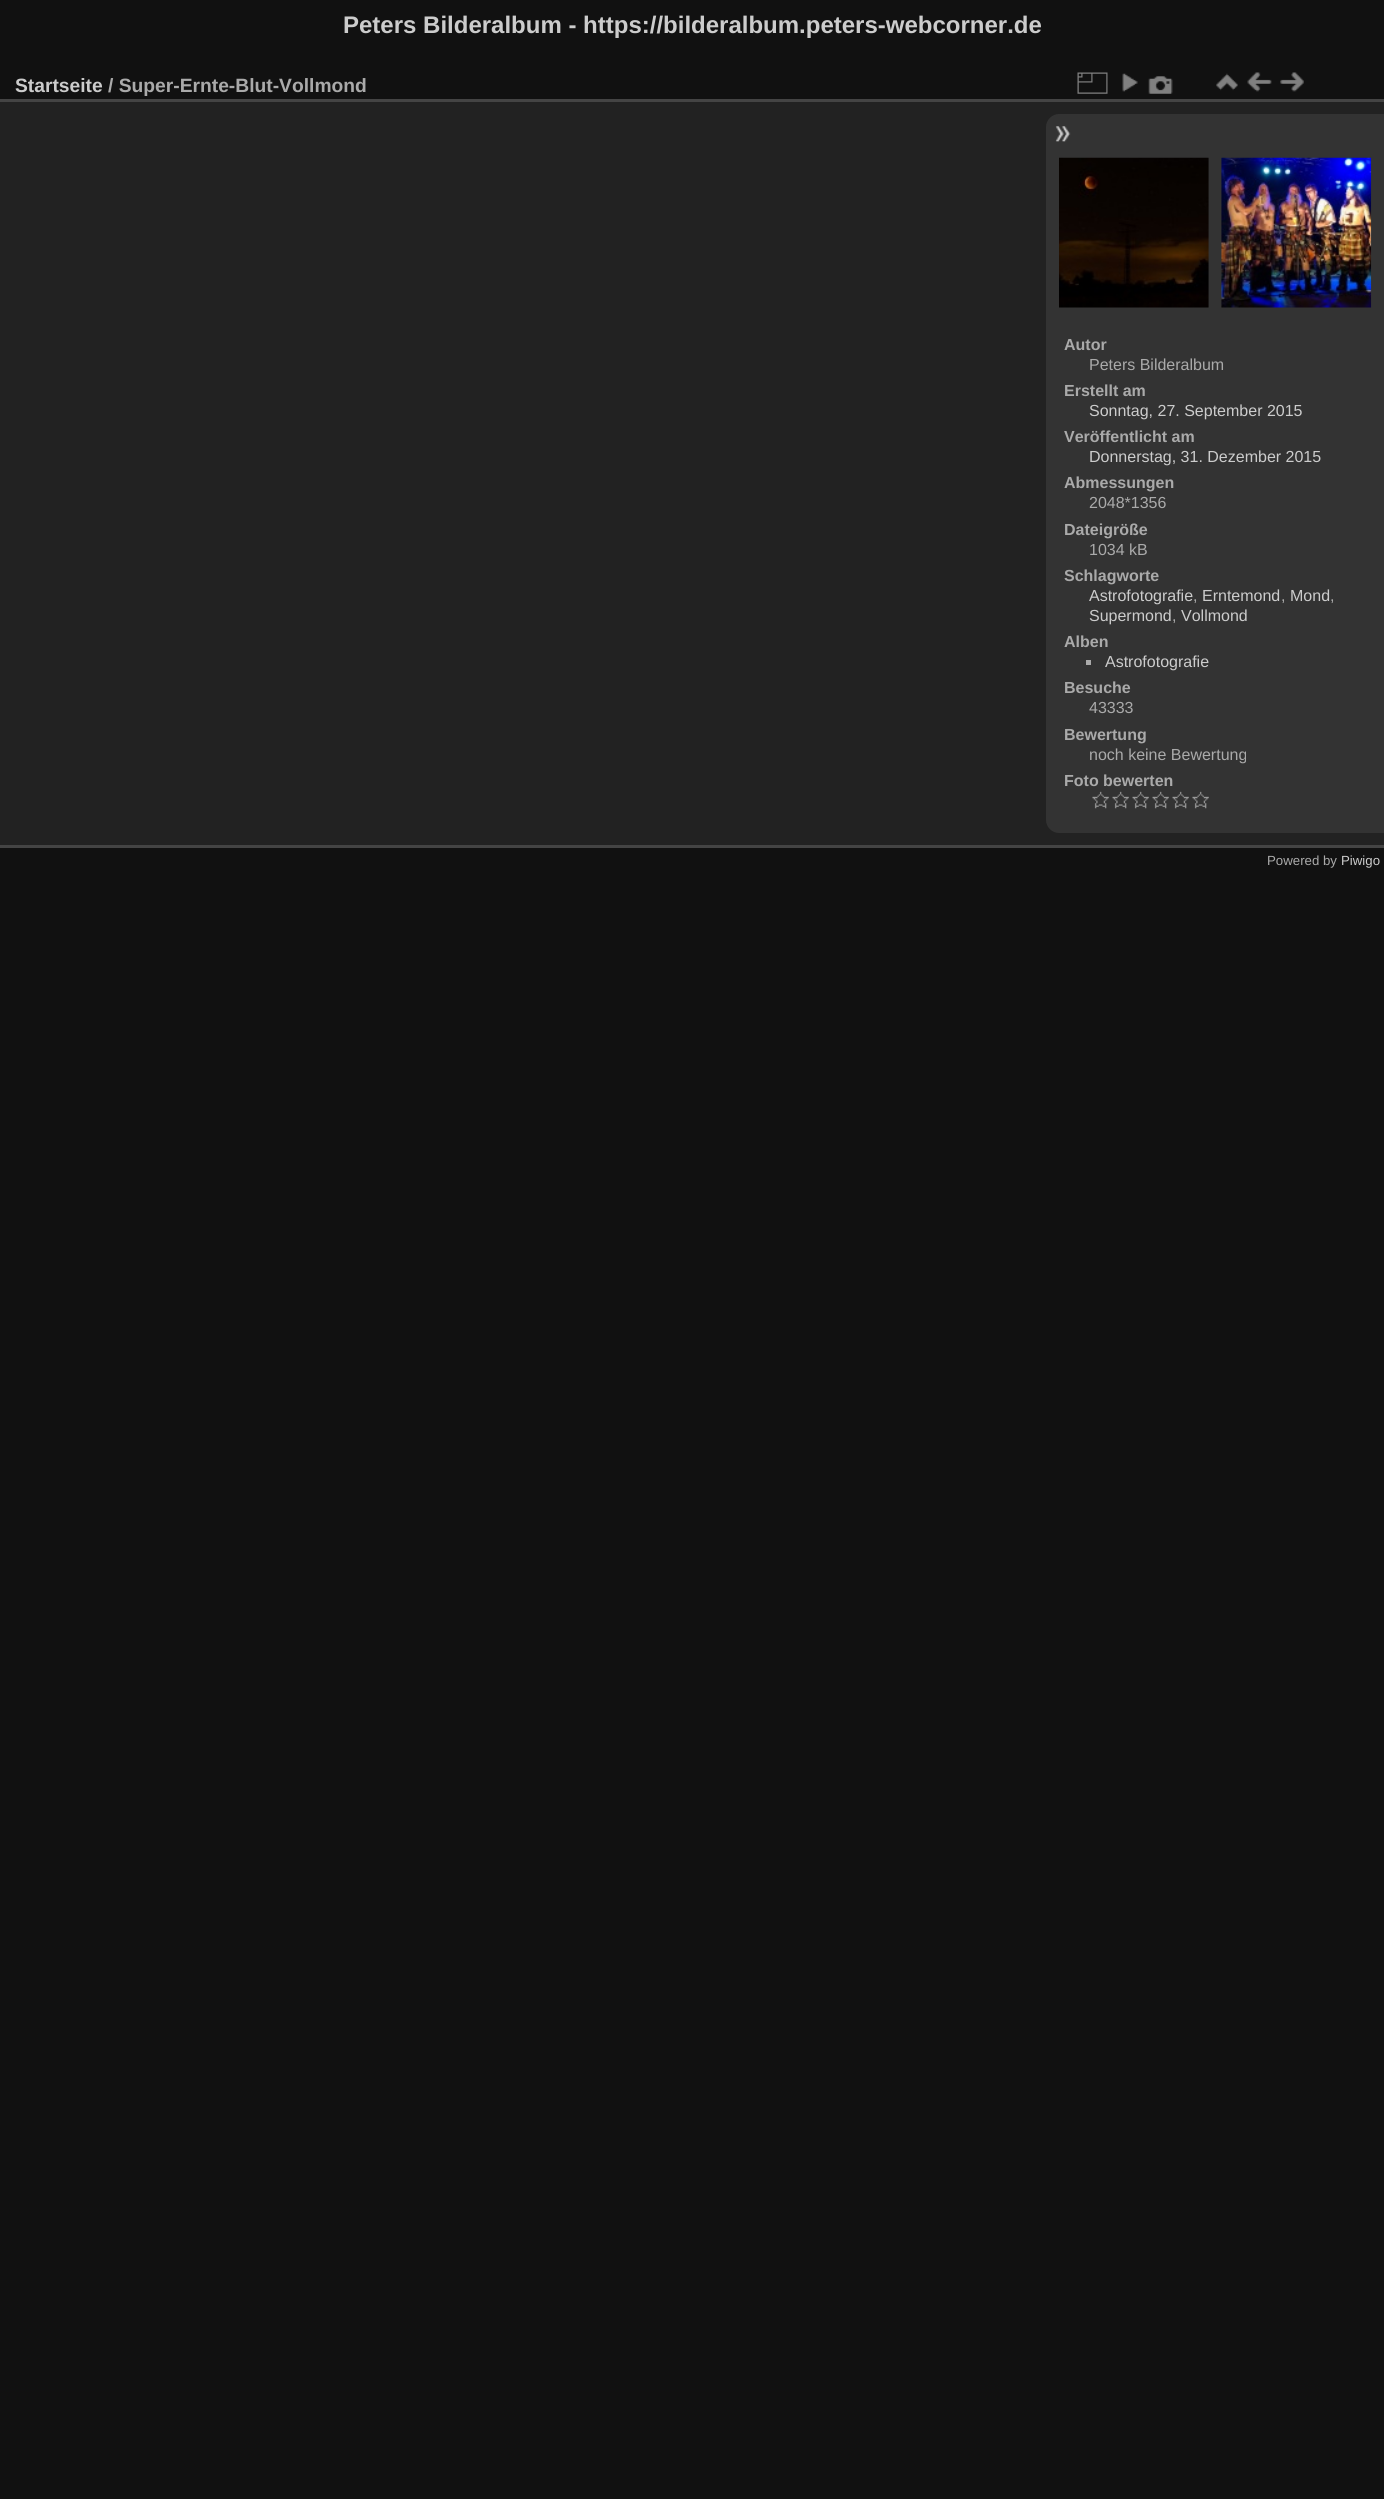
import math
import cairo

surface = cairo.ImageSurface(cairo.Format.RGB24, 1384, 2499)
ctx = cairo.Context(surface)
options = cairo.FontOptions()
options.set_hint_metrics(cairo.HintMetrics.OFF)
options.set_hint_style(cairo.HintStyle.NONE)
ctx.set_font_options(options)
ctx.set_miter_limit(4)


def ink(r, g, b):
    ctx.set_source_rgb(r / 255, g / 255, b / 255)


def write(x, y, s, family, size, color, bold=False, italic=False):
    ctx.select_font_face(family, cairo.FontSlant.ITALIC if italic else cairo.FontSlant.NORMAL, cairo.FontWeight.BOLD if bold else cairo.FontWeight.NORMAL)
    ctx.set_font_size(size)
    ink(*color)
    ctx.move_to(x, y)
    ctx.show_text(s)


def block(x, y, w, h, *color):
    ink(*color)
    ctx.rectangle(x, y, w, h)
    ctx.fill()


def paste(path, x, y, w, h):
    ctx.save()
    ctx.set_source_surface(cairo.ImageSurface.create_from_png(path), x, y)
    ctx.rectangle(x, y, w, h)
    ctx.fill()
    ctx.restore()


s1 = dict(family="Liberation Sans", size=24, color=(204, 204, 204), bold=True)
s2 = dict(family="Liberation Sans", size=19.25, color=(204, 204, 204), bold=True)
s3 = dict(family="Liberation Sans", size=19.25, color=(170, 170, 170), bold=True)
s4 = dict(family="Liberation Sans", size=16, color=(170, 170, 170), bold=True)
s5 = dict(family="Liberation Sans", size=16, color=(170, 170, 170))
s6 = dict(family="Liberation Sans", size=16, color=(204, 204, 204))
s7 = dict(family="Liberation Sans", size=13.25, color=(170, 170, 170))
s8 = dict(family="Liberation Sans", size=13.25, color=(204, 204, 204))

ink(17, 17, 17)
ctx.paint()
write(343, 33, "Peters Bilderalbum - https://bilderalbum.peters-webcorner.de", **s1)
block(0, 102, 1384, 743, 34, 34, 34)
block(0, 845, 1384, 3, 68, 68, 68)
block(0, 99, 1384, 3, 68, 68, 68)
write(15, 92, "Startseite", **s2)
write(108, 92, "/ Super-Ernte-Blut-Vollmond", **s3)
paste("pic1.png", 1077, 72, 31, 22)
paste("pic2.png", 1122, 73, 16, 19)
paste("pic3.png", 1148, 76, 25, 18)
paste("pic4.png", 1216, 73, 22, 18)
paste("pic5.png", 1247, 72, 25, 20)
paste("pic6.png", 1280, 72, 24, 20)
ink(51, 51, 51)
ctx.new_path()
ctx.move_to(1059, 114)
ctx.line_to(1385, 114)
ctx.line_to(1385, 833)
ctx.line_to(1059, 833)
ctx.curve_to(1052, 833, 1046, 827, 1046, 820)
ctx.line_to(1046, 127)
ctx.curve_to(1046, 120, 1052, 114, 1059, 114)
ctx.close_path()
ctx.fill()
paste("pic7.png", 1055, 126, 16, 16)
paste("pic8.png", 1059, 157, 150, 151)
paste("pic9.png", 1221, 157, 151, 151)
write(1064, 350, "Autor", **s4)
write(1089, 370, "Peters Bilderalbum", **s5)
write(1064, 396, "Erstellt am", **s4)
write(1089, 416, "Sonntag, 27. September 2015", **s6)
write(1064, 442, "Veröffentlicht am", **s4)
write(1089, 462, "Donnerstag, 31. Dezember 2015", **s6)
write(1064, 488, "Abmessungen", **s4)
write(1089, 508, "2048*1356", **s5)
write(1064, 535, "Dateigröße", **s4)
write(1089, 555, "1034 kB", **s5)
write(1064, 581, "Schlagworte", **s4)
write(1089, 601, "Astrofotografie", **s6)
write(1193, 601, ",", **s5)
write(1202, 601, "Erntemond", **s6)
write(1281, 601, ",", **s5)
write(1290, 601, "Mond", **s6)
write(1330, 601, ",", **s5)
write(1089, 621, "Supermond", **s6)
write(1172, 621, ",", **s5)
write(1181, 621, "Vollmond", **s6)
write(1064, 647, "Alben", **s4)
block(1086, 660, 5, 5, 170, 170, 170)
write(1105, 667, "Astrofotografie", **s6)
write(1064, 693, "Besuche", **s4)
write(1089, 713, "43333", **s5)
write(1064, 740, "Bewertung", **s4)
write(1089, 760, "noch keine Bewertung", **s5)
write(1064, 786, "Foto bewerten", **s4)
paste("pic10.png", 1092, 791, 17, 18)
paste("pic11.png", 1112, 791, 17, 18)
paste("pic11.png", 1132, 791, 17, 18)
paste("pic11.png", 1152, 791, 17, 18)
paste("pic11.png", 1172, 791, 17, 18)
paste("pic10.png", 1192, 791, 17, 18)
write(1267, 865, "Powered by", **s7)
write(1341, 865, "Piwigo", **s8)
surface.write_to_png("screenshot.png")
